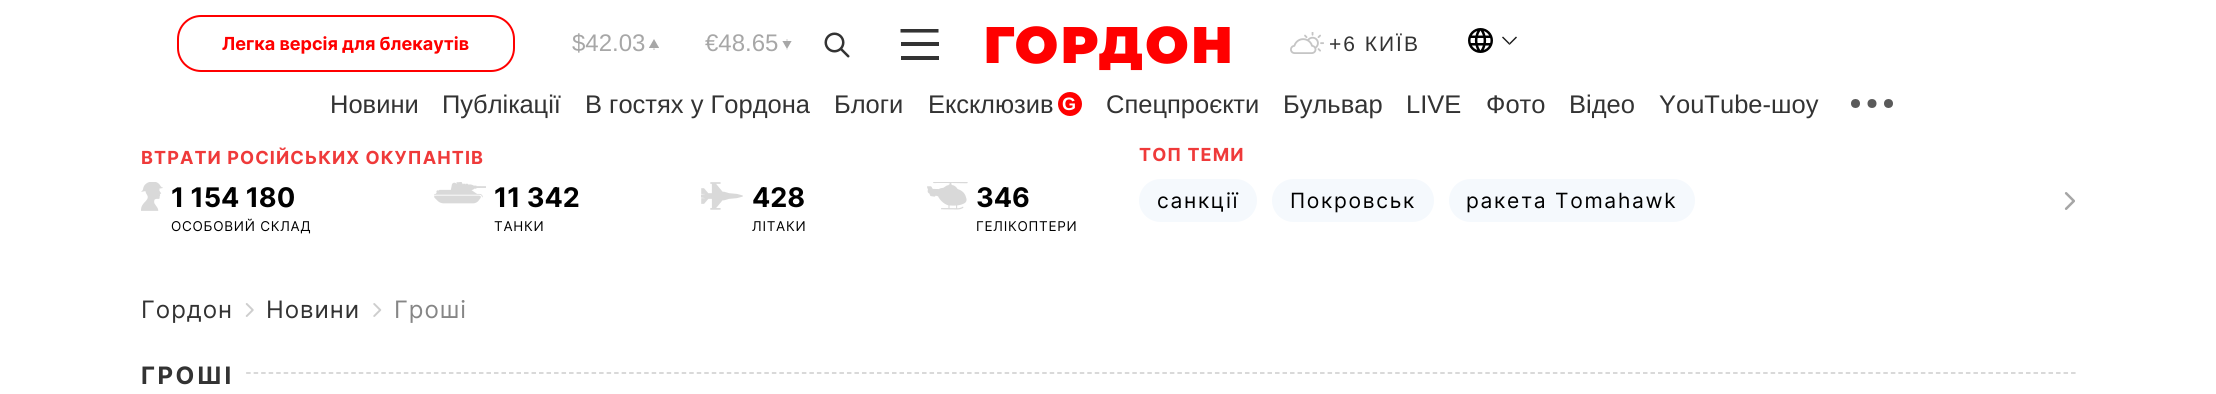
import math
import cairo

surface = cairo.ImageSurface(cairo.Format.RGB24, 2216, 394)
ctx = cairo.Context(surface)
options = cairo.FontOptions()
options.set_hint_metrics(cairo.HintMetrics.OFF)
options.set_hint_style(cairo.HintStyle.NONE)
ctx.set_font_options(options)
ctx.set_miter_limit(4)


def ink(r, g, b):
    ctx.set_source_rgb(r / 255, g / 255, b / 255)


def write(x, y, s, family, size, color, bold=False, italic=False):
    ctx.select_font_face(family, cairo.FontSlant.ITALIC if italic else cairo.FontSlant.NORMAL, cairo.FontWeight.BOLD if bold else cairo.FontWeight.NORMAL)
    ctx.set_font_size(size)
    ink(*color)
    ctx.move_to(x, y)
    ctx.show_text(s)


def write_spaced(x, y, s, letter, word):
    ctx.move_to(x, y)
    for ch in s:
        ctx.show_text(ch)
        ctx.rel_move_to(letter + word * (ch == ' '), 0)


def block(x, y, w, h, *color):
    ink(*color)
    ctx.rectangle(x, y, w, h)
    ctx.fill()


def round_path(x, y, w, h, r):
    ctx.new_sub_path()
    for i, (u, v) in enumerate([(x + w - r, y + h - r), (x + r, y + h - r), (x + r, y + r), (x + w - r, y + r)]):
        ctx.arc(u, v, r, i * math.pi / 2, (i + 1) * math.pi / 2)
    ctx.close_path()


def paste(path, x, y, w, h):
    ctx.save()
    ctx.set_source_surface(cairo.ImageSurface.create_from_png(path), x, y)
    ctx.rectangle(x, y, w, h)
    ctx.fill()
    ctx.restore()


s1 = dict(family="Inter", size=18, color=(255, 0, 0), bold=True)
s2 = dict(family="Liberation Sans", size=24, color=(167, 167, 167))
s3 = dict(family="Liberation Sans", size=25.5, color=(51, 51, 51))
s4 = dict(family="Inter", size=27, color=(0, 0, 0), bold=True)

ink(255, 255, 255)
ctx.paint()
round_path(178, 16, 336, 55, 23)
ink(255, 0, 0)
ctx.stroke()
write(222, 50, "Легка версія для блекаутів", **s1)
write(572, 51, "$42.03", **s2)
paste("pic1.png", 649, 39, 10, 11)
write(705, 51, "€48.65", **s2)
paste("pic2.png", 782, 39, 10, 11)
paste("pic3.png", 824, 32, 26, 26)
ctx.save()
ctx.rectangle(899, 29, 42, 31)
ctx.clip()
ctx.new_path()
ctx.move_to(900.5, 30.5)
ctx.line_to(938.5, 30.5)
ink(51, 51, 51)
ctx.set_line_width(4.1)
ctx.stroke()
ctx.restore()
block(901, 42, 38, 4, 51, 51, 51)
block(901, 56, 38, 4, 51, 51, 51)
paste("pic4.png", 986, 26, 244, 45)
paste("pic5.png", 1290, 32, 34, 22)
ctx.set_font_size(21)
write_spaced(1329, 51, "+6 КИЇВ", 2, 0)
paste("pic6.png", 1468, 28, 25, 25)
ink(26, 26, 26)
ctx.new_path()
ctx.move_to(1517, 37.5)
ctx.line_to(1509.5, 45)
ctx.line_to(1509.5, 43)
ctx.line_to(1516, 36.5)
ctx.close_path()
ctx.fill()
ctx.set_source_rgba(0, 0, 0, 0.9)
ctx.new_path()
ctx.move_to(1509.5, 45)
ctx.line_to(1502, 37.5)
ctx.line_to(1503, 36.5)
ctx.line_to(1509.5, 43)
ctx.close_path()
ctx.fill()
write(330, 113, "Новини", **s3)
write(442, 113, "Публікації", **s3)
write(585, 113, "В гостях у Гордона", **s3)
write(834, 113, "Блоги", **s3)
write(928, 113, "Ексклюзив", **s3)
ink(255, 0, 0)
ctx.new_path()
ctx.arc(1070, 104, 12, 0, 2 * math.pi)
ctx.fill()
ctx.select_font_face("Liberation Sans", cairo.FontSlant.NORMAL, cairo.FontWeight.BOLD)
ctx.set_font_size(18)
ink(255, 255, 255)
write_spaced(1062, 110, "G", 2, 0)
write(1106, 113, "Спецпроєкти", **s3)
write(1283, 113, "Бульвар", **s3)
write(1406, 113, "LIVE", **s3)
write(1486, 113, "Фото", **s3)
write(1569, 113, "Відео", **s3)
write(1659, 113, "YouTube-шоу", **s3)
ink(90, 90, 90)
ctx.new_path()
ctx.arc(1855.5, 103.5, 4.5, 0, 2 * math.pi)
ctx.fill()
ctx.arc(1872, 103.5, 4.5, 0, 2 * math.pi)
ctx.fill()
ctx.arc(1888.5, 103.5, 4.5, 0, 2 * math.pi)
ctx.fill()
ctx.select_font_face("Inter", cairo.FontSlant.NORMAL, cairo.FontWeight.BOLD)
ctx.set_font_size(18)
ink(239, 58, 58)
write_spaced(141, 164, "ВТРАТИ РОСІЙСЬКИХ ОКУПАНТІВ", 1.1, 0)
paste("pic7.png", 141, 182, 22, 29)
write(171, 207, "1 154 180", **s4)
ctx.select_font_face("Inter")
ctx.set_font_size(13.5)
write_spaced(171, 231, "ОСОБОВИЙ СКЛАД", 0.75, 0)
paste("pic8.png", 434, 182, 52, 22)
write(494, 207, "11 342", **s4)
ctx.select_font_face("Inter")
ctx.set_font_size(13.5)
write_spaced(494, 231, "ТАНКИ", 0.75, 0)
paste("pic9.png", 701, 182, 42, 28)
write(752, 207, "428", **s4)
ctx.select_font_face("Inter")
ctx.set_font_size(13.5)
write_spaced(752, 231, "ЛІТАКИ", 0.75, 0)
paste("pic10.png", 927, 182, 41, 28)
write(976, 207, "346", **s4)
ctx.select_font_face("Inter")
ctx.set_font_size(13.5)
write_spaced(976, 231, "ГЕЛІКОПТЕРИ", 0.75, 0)
ctx.select_font_face("Inter", cairo.FontSlant.NORMAL, cairo.FontWeight.BOLD)
ctx.set_font_size(18)
ink(239, 58, 58)
write_spaced(1139, 161, "ТОП ТЕМИ", 1.1, 0)
ink(245, 249, 253)
round_path(1139, 179, 118, 43, 21.5)
ctx.fill()
ctx.select_font_face("Inter")
ctx.set_font_size(21)
ink(0, 0, 0)
write_spaced(1157, 208, "санкції", 1.7, 0)
ink(245, 249, 253)
round_path(1272, 179, 162, 43, 21.5)
ctx.fill()
ink(0, 0, 0)
write_spaced(1290, 208, "Покровськ", 1.7, 0)
ink(245, 249, 253)
round_path(1449, 179, 246, 43, 21.5)
ctx.fill()
ink(0, 0, 0)
write_spaced(1466, 208, "ракета Tomahawk", 1.7, 0)
paste("pic11.png", 2064, 192, 11, 18)
ctx.set_font_size(24)
ink(51, 51, 51)
write_spaced(141, 318, "Гордон", 1, 0)
paste("pic12.png", 245, 303, 9, 14)
write_spaced(266, 318, "Новини", 1, 0)
paste("pic13.png", 373, 303, 9, 14)
ink(134, 134, 134)
write_spaced(394, 318, "Гроші", 1, 0)
ctx.new_path()
ctx.move_to(141, 373)
ctx.line_to(2076, 373)
ink(204, 204, 204)
ctx.set_line_width(1.5)
ctx.set_dash([4.5, 3.01])
ctx.stroke()
block(141, 372, 103, 2, 255, 255, 255)
ctx.select_font_face("Inter", cairo.FontSlant.NORMAL, cairo.FontWeight.BOLD)
ink(51, 51, 51)
write_spaced(141, 384, "ГРОШІ", 2.5, 0)
surface.write_to_png("screenshot.png")
